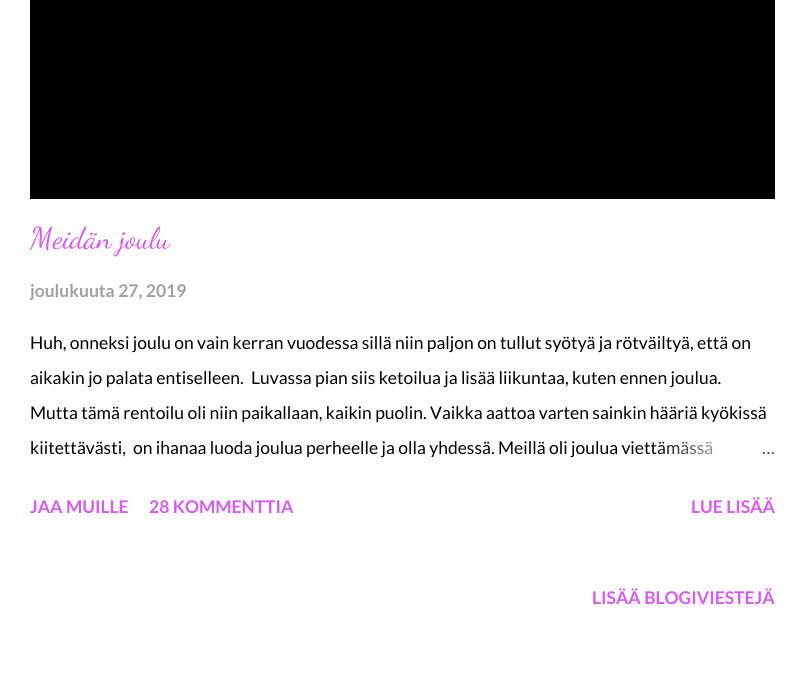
import math
import cairo

surface = cairo.ImageSurface(cairo.Format.RGB24, 804, 676)
ctx = cairo.Context(surface)
options = cairo.FontOptions()
options.set_hint_metrics(cairo.HintMetrics.OFF)
options.set_hint_style(cairo.HintStyle.NONE)
ctx.set_font_options(options)
ctx.set_miter_limit(4)


def ink(r, g, b):
    ctx.set_source_rgb(r / 255, g / 255, b / 255)


def write(x, y, s, family, size, color, bold=False, italic=False):
    ctx.select_font_face(family, cairo.FontSlant.ITALIC if italic else cairo.FontSlant.NORMAL, cairo.FontWeight.BOLD if bold else cairo.FontWeight.NORMAL)
    ctx.set_font_size(size)
    ink(*color)
    ctx.move_to(x, y)
    ctx.show_text(s)


def block(x, y, w, h, *color):
    ink(*color)
    ctx.rectangle(x, y, w, h)
    ctx.fill()


s1 = dict(family="Dancing Script", size=30, color=(219, 88, 245))
s2 = dict(family="Lato", size=17.5, color=(161, 161, 161), bold=True)
s3 = dict(family="Lato", size=17.5, color=(0, 0, 0))
s4 = dict(family="Lato", size=17.5, color=(84, 84, 84))
s5 = dict(family="Lato", size=17.5, color=(219, 88, 245), bold=True)

ink(255, 255, 255)
ctx.paint()
block(30, 0, 745, 199, 0, 0, 0)
write(30, 248, "Meidän joulu", **s1)
write(30, 297, "joulukuuta 27, 2019", **s2)
write(30, 349, "Huh, onneksi joulu on vain kerran vuodessa sillä niin paljon on tullut syötyä ja rötväiltyä, että on", **s3)
write(30, 384, "aikakin jo palata entiselleen.", **s3)
write(251, 384, "Luvassa pian siis ketoilua ja lisää liikuntaa, kuten ennen joulua.", **s3)
write(30, 419, "Mutta tämä rentoilu oli niin paikallaan, kaikin puolin. Vaikka aattoa varten sainkin hääriä kyökissä", **s3)
write(30, 454, "kiitettävästi,", **s3)
write(133, 454, "on ihanaa luoda joulua perheelle ja olla yhdessä. Meillä oli joulua viettämässä", **s3)
gradient = cairo.LinearGradient(775, 448, 655, 448)
gradient.add_color_stop_rgba(0, 1, 1, 1, 1)
gradient.add_color_stop_rgba(0.2, 1, 1, 1, 1)
gradient.add_color_stop_rgba(1, 1, 1, 1, 0)
ctx.set_source(gradient)
ctx.rectangle(657, 441, 55, 14)
ctx.fill()
write(762, 454, "…", **s4)
write(30, 513, "JAA MUILLE", **s5)
write(149, 513, "28 KOMMENTTIA", **s5)
write(691, 513, "LUE LISÄÄ", **s5)
write(592, 604, "LISÄÄ BLOGIVIESTEJÄ", **s5)
surface.write_to_png("screenshot.png")
